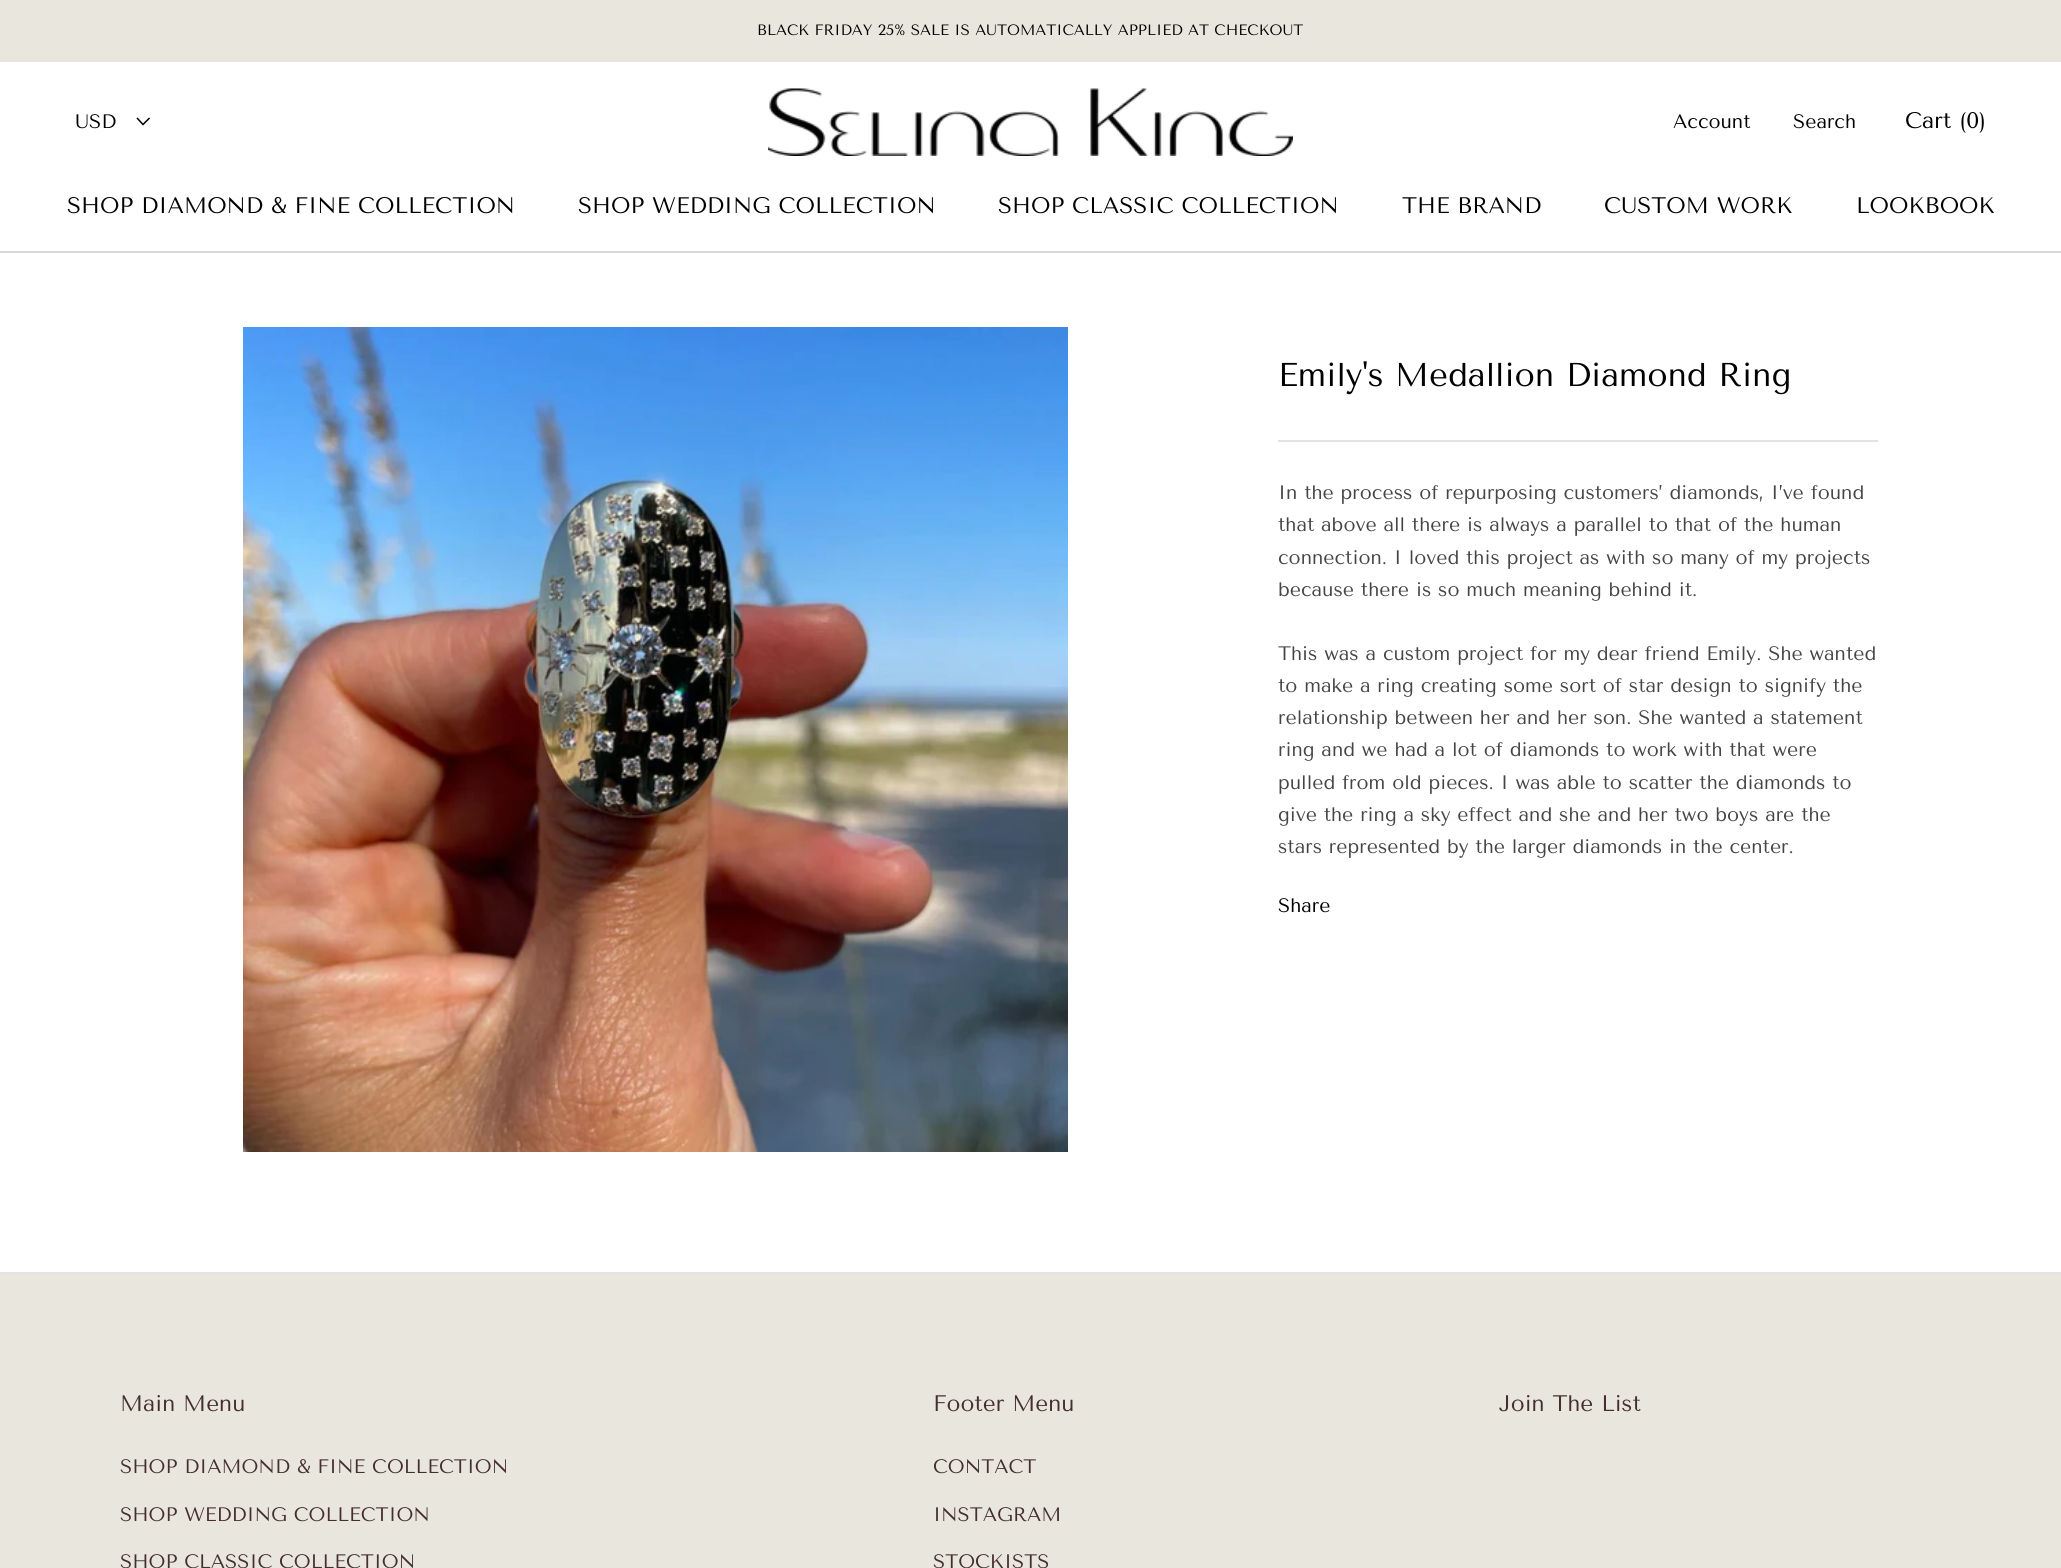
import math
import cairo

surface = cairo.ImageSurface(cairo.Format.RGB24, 2061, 1568)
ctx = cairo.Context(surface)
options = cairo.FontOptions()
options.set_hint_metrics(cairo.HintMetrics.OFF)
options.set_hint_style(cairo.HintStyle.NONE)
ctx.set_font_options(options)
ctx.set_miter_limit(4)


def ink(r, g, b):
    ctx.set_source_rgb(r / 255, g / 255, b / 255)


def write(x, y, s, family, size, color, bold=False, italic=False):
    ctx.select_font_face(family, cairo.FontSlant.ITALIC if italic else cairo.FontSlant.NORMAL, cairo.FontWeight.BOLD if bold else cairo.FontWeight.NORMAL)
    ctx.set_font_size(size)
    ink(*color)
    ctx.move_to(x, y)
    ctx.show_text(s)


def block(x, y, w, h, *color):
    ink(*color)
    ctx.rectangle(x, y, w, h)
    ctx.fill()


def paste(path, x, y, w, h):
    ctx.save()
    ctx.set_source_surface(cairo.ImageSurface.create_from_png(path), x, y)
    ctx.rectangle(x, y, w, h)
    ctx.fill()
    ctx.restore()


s1 = dict(family="Tenor Sans", size=15, color=(0, 0, 0))
s2 = dict(family="Tenor Sans", size=19.5, color=(0, 0, 0))
s3 = dict(family="Tenor Sans", size=22.5, color=(0, 0, 0))
s4 = dict(family="Tenor Sans", size=33, color=(0, 0, 0))
s5 = dict(family="Tenor Sans", size=19.5, color=(69, 69, 69))
s6 = dict(family="Tenor Sans", size=22.5, color=(69, 46, 46))
s7 = dict(family="Tenor Sans", size=19.5, color=(69, 46, 46))

ink(255, 255, 255)
ctx.paint()
block(0, 0, 2061, 62, 233, 230, 221)
write(757, 35, "BLACK FRIDAY 25% SALE IS AUTOMATICALLY APPLIED AT CHECKOUT", **s1)
block(0, 251, 2061, 2, 217, 217, 217)
paste("pic1.png", 768, 88, 525, 68)
write(1673, 128, "Account", **s2)
write(1793, 128, "Search", **s2)
write(1905, 128, "Cart (0)", **s3)
write(75, 128, "USD", **s2)
ctx.new_path()
ctx.move_to(149, 118.5)
ctx.line_to(143, 124.5)
ctx.line_to(137.5, 118.5)
ctx.set_line_width(1.5)
ctx.set_line_cap(cairo.LineCap.SQUARE)
ctx.stroke()
write(67, 213, "SHOP DIAMOND & FINE COLLECTION", **s3)
write(578, 213, "SHOP WEDDING COLLECTION", **s3)
write(998, 213, "SHOP CLASSIC COLLECTION", **s3)
write(1402, 213, "THE BRAND", **s3)
write(1604, 213, "CUSTOM WORK", **s3)
write(1856, 213, "LOOKBOOK", **s3)
paste("pic2.png", 243, 327, 825, 825)
write(1278, 386, "Emily's Medallion Diamond Ring", **s4)
block(1278, 440, 600, 2, 227, 227, 227)
write(1278, 499, "In the process of repurposing customers’ diamonds, I’ve found", **s5)
write(1278, 531, "that above all there is always a parallel to that of the human", **s5)
write(1278, 564, "connection. I loved this project as with so many of my projects", **s5)
write(1278, 596, "because there is so much meaning behind it.", **s5)
write(1278, 660, "This was a custom project for my dear friend Emily. She wanted", **s5)
write(1278, 692, "to make a ring creating some sort of star design to signify the", **s5)
write(1278, 724, "relationship between her and her son. She wanted a statement", **s5)
write(1278, 756, "ring and we had a lot of diamonds to work with that were", **s5)
write(1278, 789, "pulled from old pieces. I was able to scatter the diamonds to", **s5)
write(1278, 821, "give the ring a sky effect and she and her two boys are the", **s5)
write(1278, 853, "stars represented by the larger diamonds in the center.", **s5)
write(1278, 912, "Share", **s2)
block(0, 1272, 2061, 2, 227, 227, 227)
block(0, 1274, 2061, 294, 233, 230, 221)
write(120, 1411, "Main Menu", **s6)
write(120, 1473, "SHOP DIAMOND & FINE COLLECTION", **s7)
write(120, 1521, "SHOP WEDDING COLLECTION", **s7)
write(120, 1568, "SHOP CLASSIC COLLECTION", **s7)
write(933, 1411, "Footer Menu", **s6)
write(933, 1473, "CONTACT", **s7)
write(933, 1521, "INSTAGRAM", **s7)
write(933, 1568, "STOCKISTS", **s7)
write(1499, 1411, "Join The List", **s6)
surface.write_to_png("screenshot.png")
